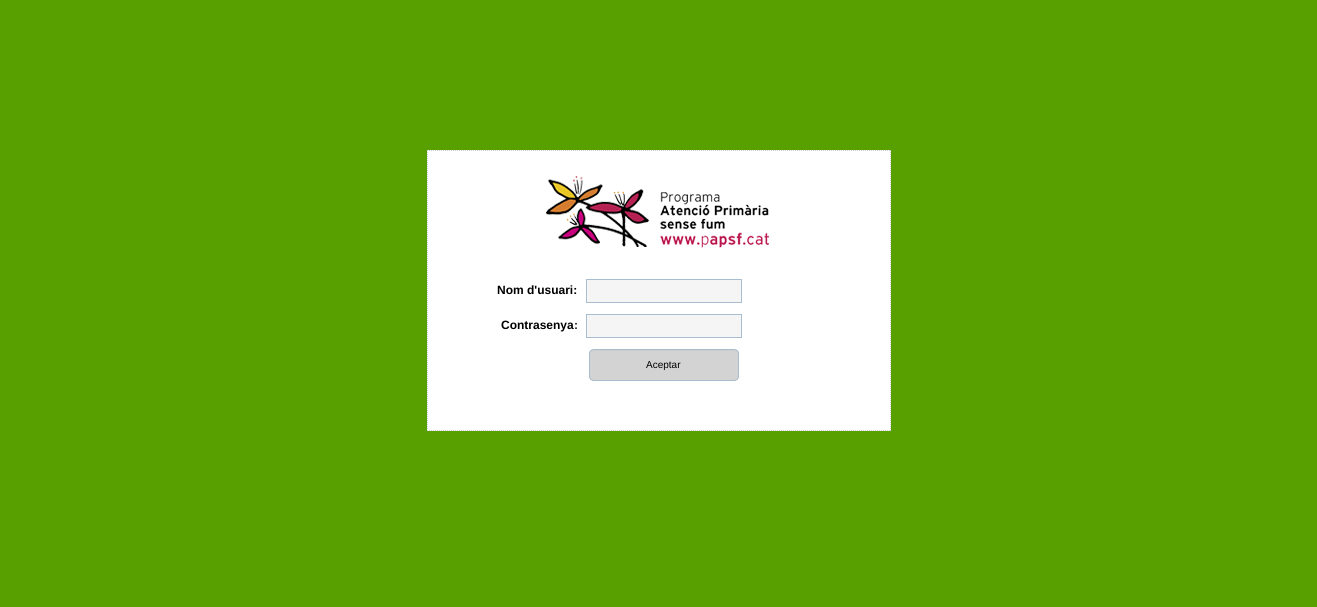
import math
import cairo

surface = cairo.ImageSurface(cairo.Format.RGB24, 1317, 607)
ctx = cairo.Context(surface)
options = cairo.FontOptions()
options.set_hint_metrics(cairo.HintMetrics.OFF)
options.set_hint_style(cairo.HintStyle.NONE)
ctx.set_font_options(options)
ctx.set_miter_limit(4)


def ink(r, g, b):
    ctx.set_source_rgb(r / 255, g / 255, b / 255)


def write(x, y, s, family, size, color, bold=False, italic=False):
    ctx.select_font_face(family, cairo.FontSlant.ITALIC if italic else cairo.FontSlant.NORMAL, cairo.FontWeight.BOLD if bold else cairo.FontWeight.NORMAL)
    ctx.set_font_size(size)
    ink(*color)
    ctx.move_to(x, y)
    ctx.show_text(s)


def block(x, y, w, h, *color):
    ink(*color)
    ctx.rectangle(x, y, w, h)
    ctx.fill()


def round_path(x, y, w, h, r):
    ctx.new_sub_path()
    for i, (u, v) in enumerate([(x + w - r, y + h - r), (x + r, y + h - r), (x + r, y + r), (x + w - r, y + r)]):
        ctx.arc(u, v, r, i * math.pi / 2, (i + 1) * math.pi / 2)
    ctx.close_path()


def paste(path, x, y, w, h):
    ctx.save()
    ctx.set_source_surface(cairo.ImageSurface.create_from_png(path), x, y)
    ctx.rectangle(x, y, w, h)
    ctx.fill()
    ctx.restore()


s1 = dict(family="Liberation Sans", size=12, color=(0, 0, 0), bold=True)
s2 = dict(family="Liberation Sans", size=12, color=(35, 31, 32), bold=True)
s3 = dict(family="Liberation Sans", size=10, color=(0, 0, 0))

ink(88, 159, 0)
ctx.paint()
block(427, 150, 464, 281, 255, 255, 255)
ctx.new_path()
ctx.move_to(427, 150.5)
ctx.line_to(891, 150.5)
ink(204, 204, 204)
ctx.set_line_width(1)
ctx.set_dash([1, 1])
ctx.stroke()
ctx.new_path()
ctx.move_to(890.5, 150)
ctx.line_to(890.5, 431)
ctx.stroke()
ctx.new_path()
ctx.move_to(427, 430.5)
ctx.line_to(891, 430.5)
ctx.stroke()
ctx.new_path()
ctx.move_to(427.5, 150)
ctx.line_to(427.5, 431)
ctx.stroke()
paste("pic1.png", 546, 176, 223, 72)
write(497, 294, "Nom d'usuari:", **s1)
ink(245, 245, 245)
ctx.rectangle(586.5, 279.5, 155, 23)
ctx.fill_preserve()
ink(169, 189, 208)
ctx.set_dash([])
ctx.stroke()
write(501, 329, "Contrasenya", **s1)
write(574, 329, ":", **s2)
ink(245, 245, 245)
ctx.rectangle(586.5, 314.5, 155, 23)
ctx.fill_preserve()
ink(169, 189, 208)
ctx.stroke()
paste("pic2.png", 589, 350, 150, 31)
round_path(589.5, 349.5, 149, 31, 4.5)
ctx.stroke()
write(646, 368, "Aceptar", **s3)
surface.write_to_png("screenshot.png")
